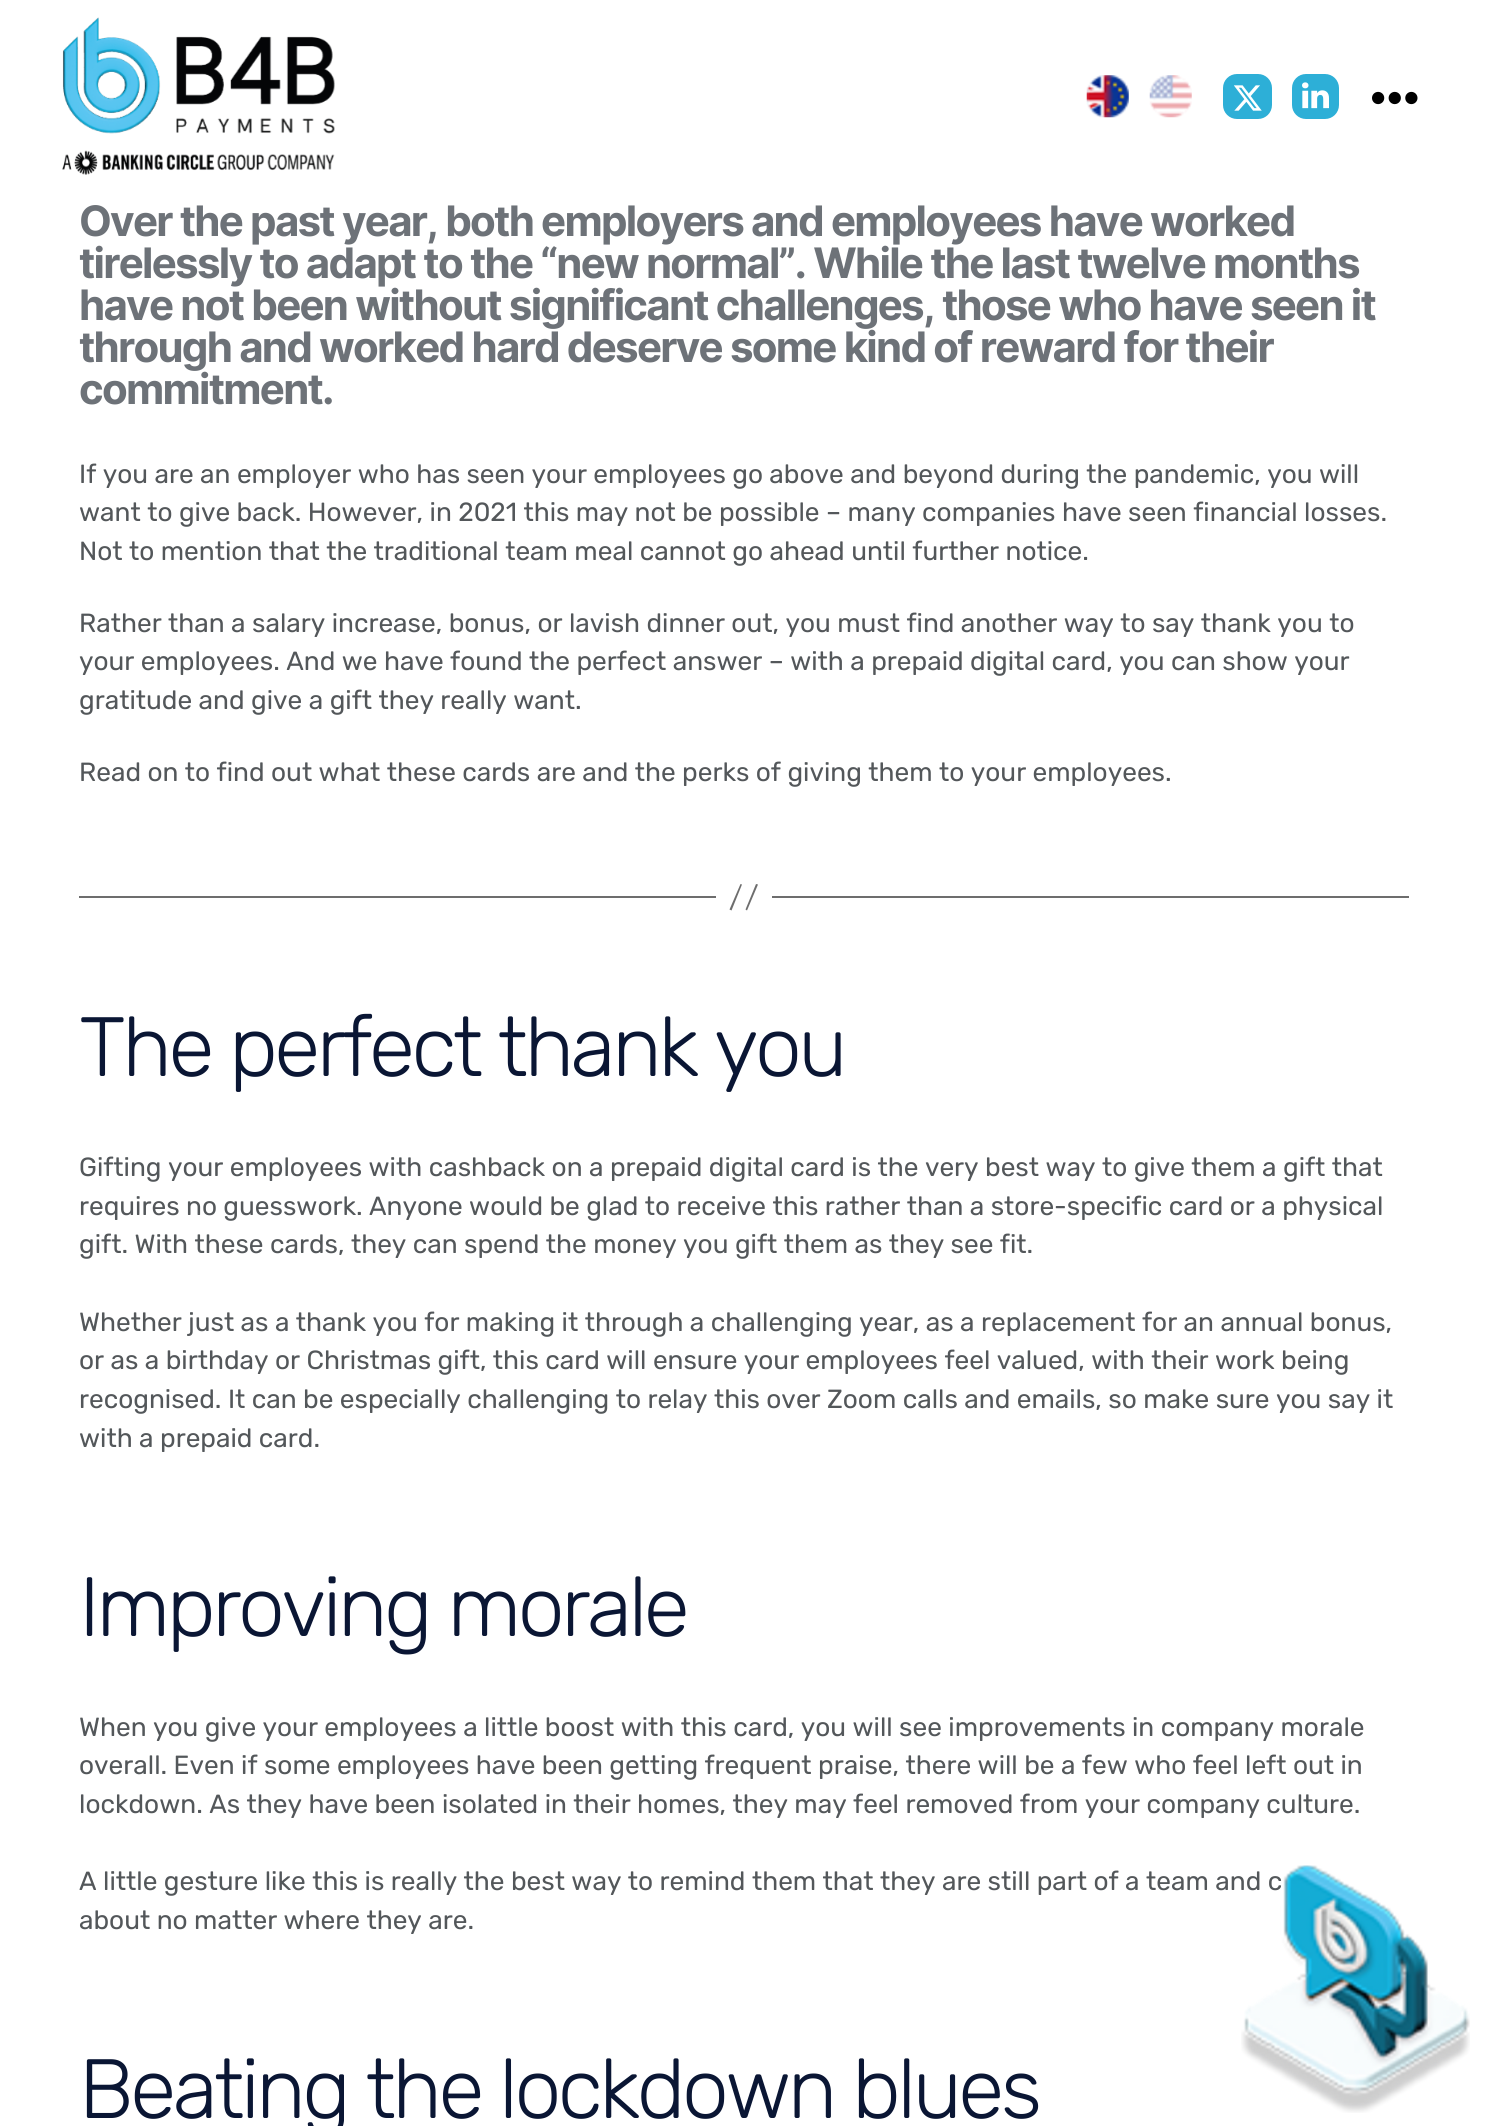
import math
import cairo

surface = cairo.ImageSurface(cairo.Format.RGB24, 1486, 2126)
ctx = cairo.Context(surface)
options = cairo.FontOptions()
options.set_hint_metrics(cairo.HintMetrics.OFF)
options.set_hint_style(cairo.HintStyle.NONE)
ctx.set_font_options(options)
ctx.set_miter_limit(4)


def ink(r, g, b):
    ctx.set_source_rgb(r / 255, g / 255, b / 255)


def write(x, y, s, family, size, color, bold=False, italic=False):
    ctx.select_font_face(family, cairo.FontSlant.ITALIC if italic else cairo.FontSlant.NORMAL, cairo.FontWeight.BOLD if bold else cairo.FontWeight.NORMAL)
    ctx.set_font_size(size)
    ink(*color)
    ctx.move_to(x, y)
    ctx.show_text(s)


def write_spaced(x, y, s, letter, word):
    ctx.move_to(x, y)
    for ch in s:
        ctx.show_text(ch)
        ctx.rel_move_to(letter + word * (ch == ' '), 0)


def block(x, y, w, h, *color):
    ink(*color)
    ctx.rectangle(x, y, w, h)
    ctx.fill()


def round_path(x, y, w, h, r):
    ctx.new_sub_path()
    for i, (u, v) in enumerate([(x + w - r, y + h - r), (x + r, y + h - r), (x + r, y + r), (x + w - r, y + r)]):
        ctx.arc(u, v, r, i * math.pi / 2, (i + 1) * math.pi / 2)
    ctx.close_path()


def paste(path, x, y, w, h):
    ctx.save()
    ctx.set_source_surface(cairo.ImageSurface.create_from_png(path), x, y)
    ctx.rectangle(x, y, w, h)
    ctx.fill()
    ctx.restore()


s1 = dict(family="Rubik", size=26.25, color=(83, 87, 90))

ink(255, 255, 255)
ctx.paint()
paste("pic1.png", 62, 17, 273, 158)
paste("pic2.png", 1086, 75, 43, 43)
paste("pic3.png", 1149, 75, 43, 43)
ink(45, 175, 215)
round_path(1223, 74, 49, 45, 14)
ctx.fill()
paste("pic4.png", 1234, 85, 28, 26)
round_path(1292, 74, 47, 45, 14)
ctx.fill()
paste("pic5.png", 1302, 82, 27, 27)
paste("pic6.png", 1372, 91, 46, 14)
ctx.select_font_face("Inter", cairo.FontSlant.NORMAL, cairo.FontWeight.BOLD)
ctx.set_font_size(42)
ink(109, 114, 120)
write_spaced(79, 236, "Over the past year, both employers and employees have worked", -1.75, 0)
write_spaced(79, 278, "tirelessly to adapt to the “new normal”. While the last twelve months", -1.75, 0)
write_spaced(79, 320, "have not been without significant challenges, those who have seen it", -1.75, 0)
write_spaced(79, 362, "through and worked hard deserve some kind of reward for their", -1.75, 0)
write_spaced(79, 404, "commitment.", -1.75, 0)
write(79, 483, "If you are an employer who has seen your employees go above and beyond during the pandemic, you will", **s1)
write(79, 521, "want to give back. However, in 2021 this may not be possible – many companies have seen financial losses.", **s1)
write(79, 560, "Not to mention that the traditional team meal cannot go ahead until further notice.", **s1)
write(79, 632, "Rather than a salary increase, bonus, or lavish dinner out, you must find another way to say thank you to", **s1)
write(79, 670, "your employees. And we have found the perfect answer – with a prepaid digital card, you can show your", **s1)
write(79, 709, "gratitude and give a gift they really want.", **s1)
write(79, 781, "Read on to find out what these cards are and the perks of giving them to your employees.", **s1)
block(772, 896, 637, 2, 109, 109, 109)
block(79, 896, 637, 2, 109, 109, 109)
ctx.new_path()
ctx.move_to(740.5, 884)
ctx.line_to(742, 884.5)
ctx.line_to(731.5, 910.5)
ctx.line_to(729.5, 909.5)
ctx.close_path()
ctx.move_to(756, 884)
ctx.line_to(758, 884.5)
ctx.line_to(747, 910.5)
ctx.line_to(745.5, 909.5)
ctx.close_path()
ctx.fill()
ctx.select_font_face("Rubik Light")
ctx.set_font_size(84)
ink(10, 22, 52)
write_spaced(79, 1076, "The perfect thank you", -3.5, 0)
write(79, 1176, "Gifting your employees with cashback on a prepaid digital card is the very best way to give them a gift that", **s1)
write(79, 1215, "requires no guesswork. Anyone would be glad to receive this rather than a store-specific card or a physical", **s1)
write(79, 1253, "gift. With these cards, they can spend the money you gift them as they see fit.", **s1)
write(79, 1331, "Whether just as a thank you for making it through a challenging year, as a replacement for an annual bonus,", **s1)
write(79, 1369, "or as a birthday or Christmas gift, this card will ensure your employees feel valued, with their work being", **s1)
write(79, 1408, "recognised. It can be especially challenging to relay this over Zoom calls and emails, so make sure you say it", **s1)
write(79, 1447, "with a prepaid card.", **s1)
ctx.select_font_face("Rubik Light")
ctx.set_font_size(84)
ink(10, 22, 52)
write_spaced(79, 1636, "Improving morale", -3.5, 0)
write(79, 1736, "When you give your employees a little boost with this card, you will see improvements in company morale", **s1)
write(79, 1774, "overall. Even if some employees have been getting frequent praise, there will be a few who feel left out in", **s1)
write(79, 1813, "lockdown. As they have been isolated in their homes, they may feel removed from your company culture.", **s1)
write(79, 1890, "A little gesture like this is really the best way to remind them that they are still part of a team and c", **s1)
write(79, 1929, "about no matter where they are.", **s1)
ctx.select_font_face("Rubik Light")
ctx.set_font_size(84)
ink(10, 22, 52)
write_spaced(79, 2118, "Beating the lockdown blues", -3.5, 0)
paste("pic7.png", 1241, 1865, 229, 248)
surface.write_to_png("screenshot.png")
